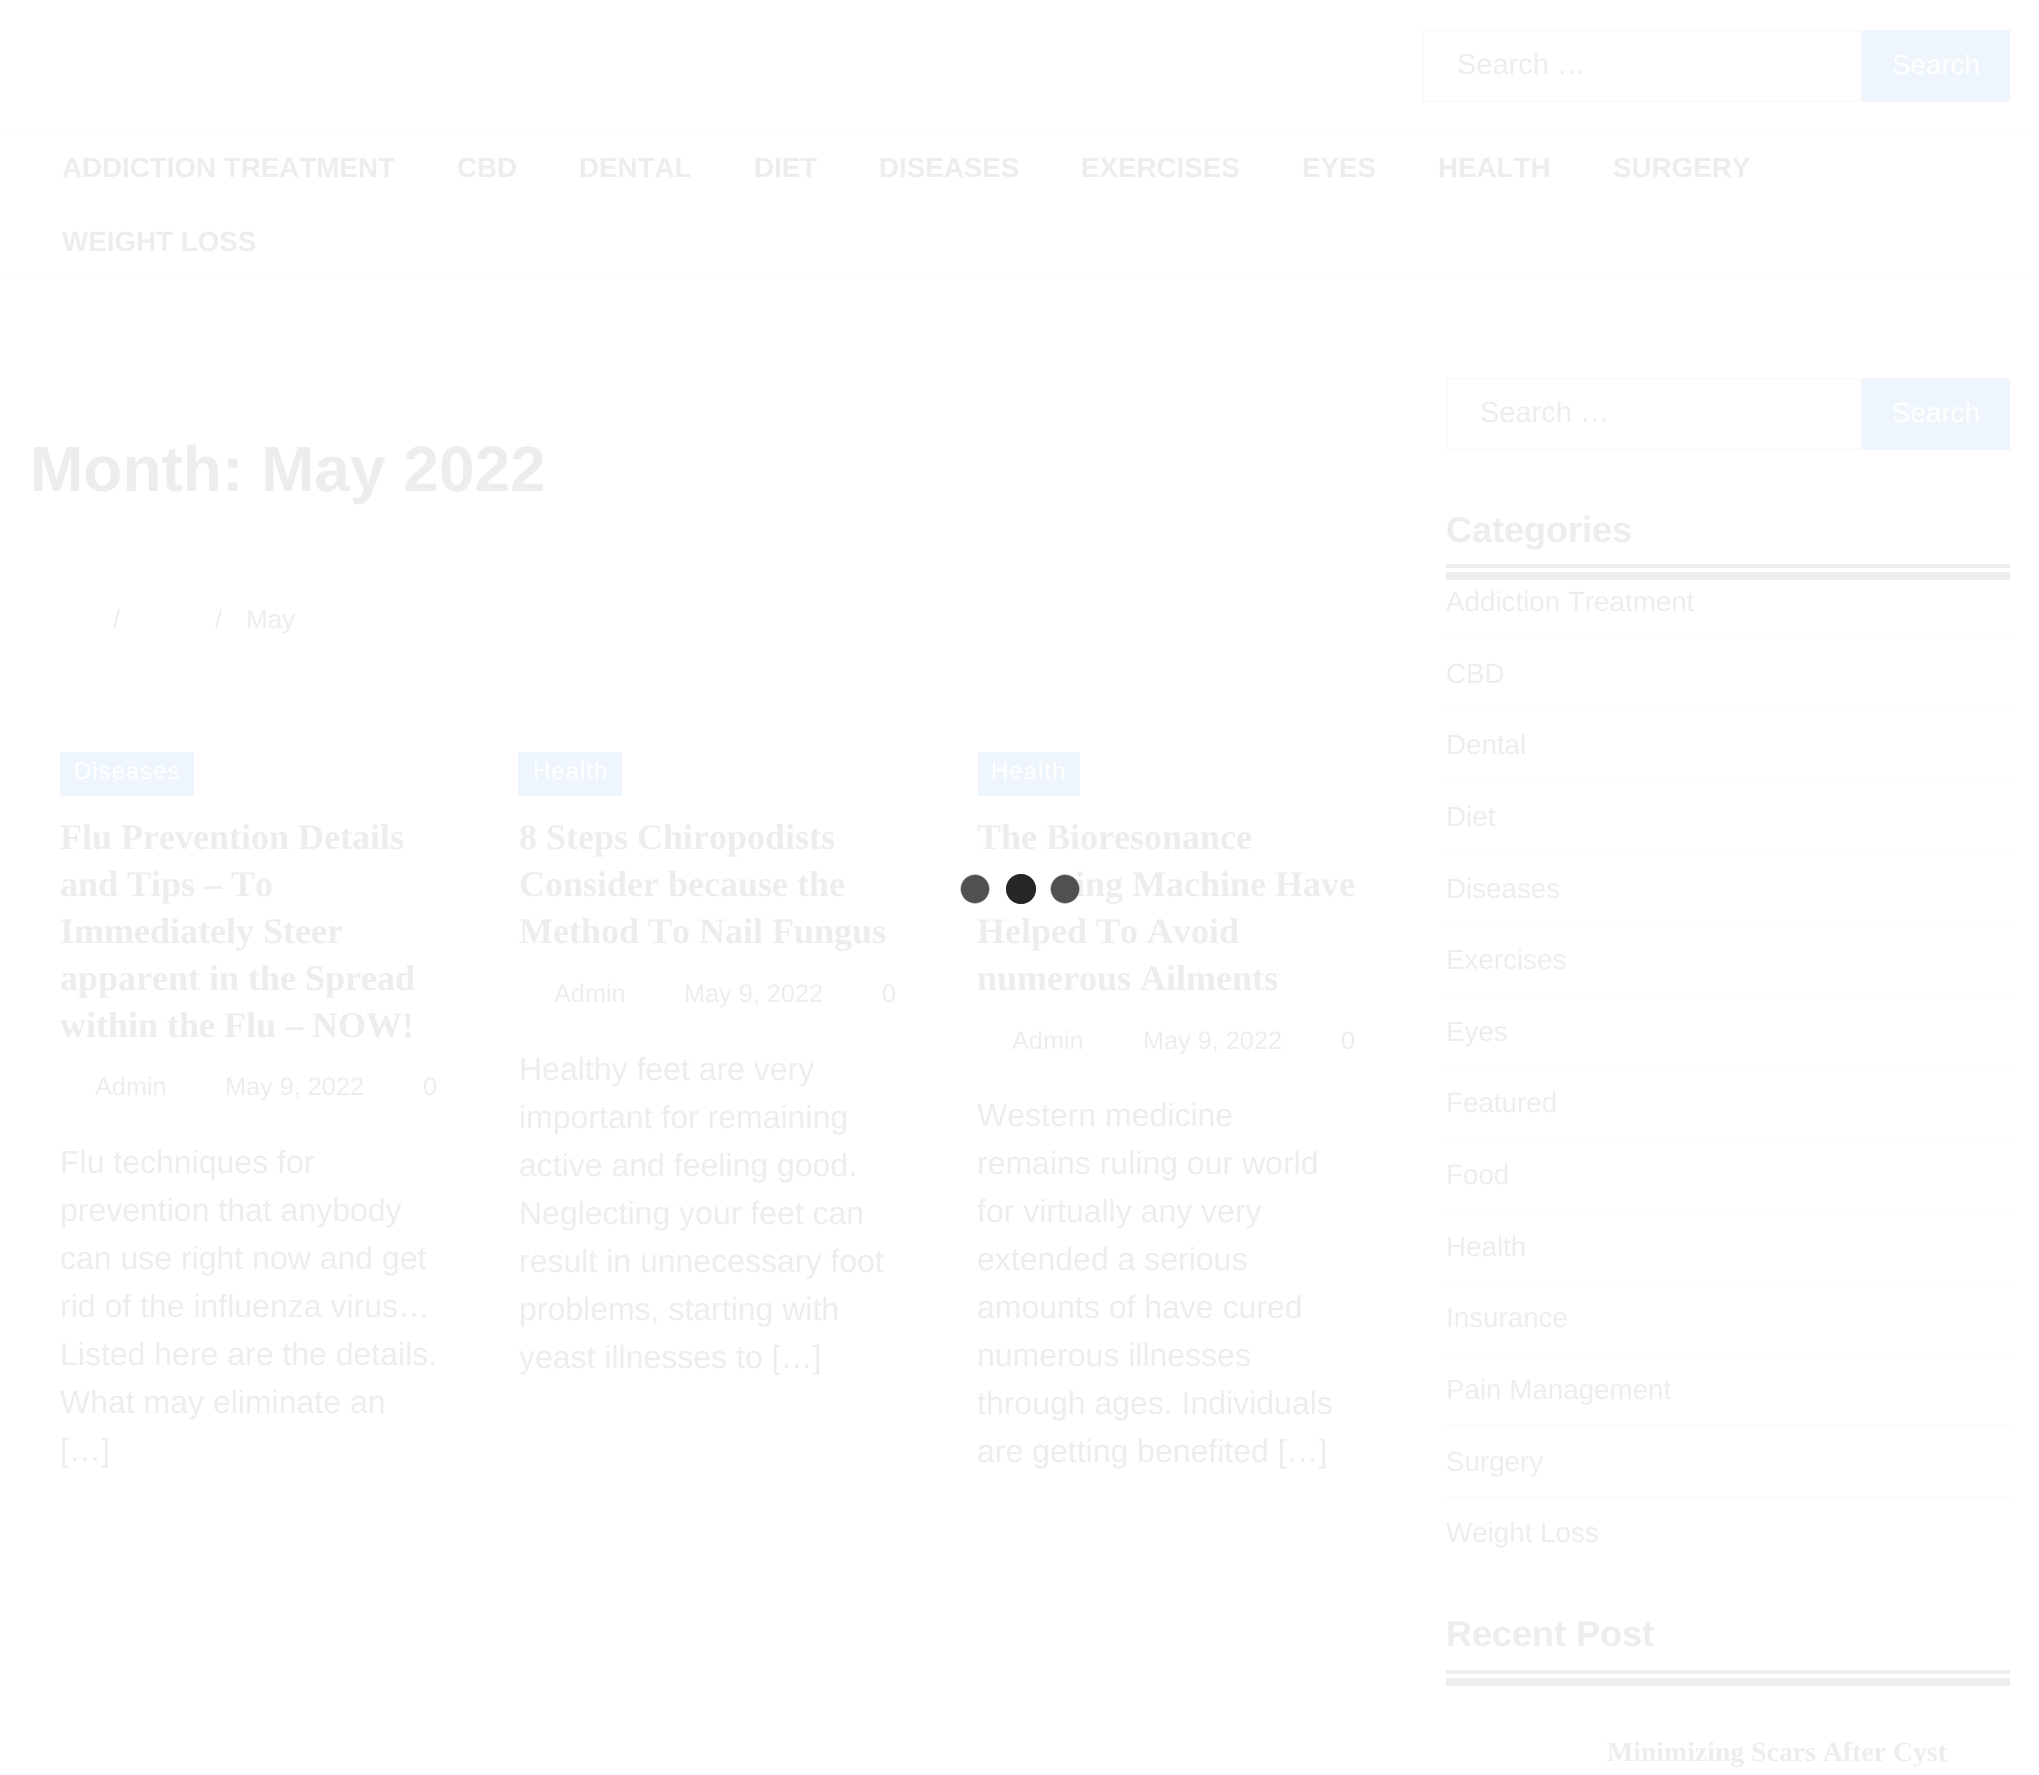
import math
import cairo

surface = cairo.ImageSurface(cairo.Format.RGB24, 2039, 1775)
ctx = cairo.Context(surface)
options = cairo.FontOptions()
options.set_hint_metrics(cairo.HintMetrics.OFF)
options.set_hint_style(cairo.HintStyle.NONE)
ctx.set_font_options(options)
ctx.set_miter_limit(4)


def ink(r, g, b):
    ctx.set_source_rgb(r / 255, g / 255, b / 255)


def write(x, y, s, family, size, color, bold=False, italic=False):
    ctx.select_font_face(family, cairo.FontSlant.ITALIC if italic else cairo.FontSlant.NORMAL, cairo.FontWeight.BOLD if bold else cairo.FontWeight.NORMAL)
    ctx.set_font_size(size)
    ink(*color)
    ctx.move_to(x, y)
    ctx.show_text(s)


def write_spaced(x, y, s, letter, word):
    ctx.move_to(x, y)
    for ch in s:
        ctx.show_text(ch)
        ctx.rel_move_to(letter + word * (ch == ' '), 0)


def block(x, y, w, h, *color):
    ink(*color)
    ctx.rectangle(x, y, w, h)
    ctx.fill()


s1 = dict(family="Liberation Sans", size=29, color=(237, 237, 237))
s2 = dict(family="Liberation Sans", size=27.75, color=(255, 255, 255))
s3 = dict(family="Liberation Sans", size=27.75, color=(237, 237, 237), bold=True)
s4 = dict(family="Liberation Sans", size=64, color=(237, 237, 237), bold=True)
s5 = dict(family="Liberation Sans", size=26, color=(237, 237, 237))
s6 = dict(family="Liberation Serif", size=36, color=(237, 237, 237), bold=True)
s7 = dict(family="Liberation Sans", size=25.25, color=(237, 237, 237))
s8 = dict(family="Liberation Sans", size=32, color=(237, 237, 237))
s9 = dict(family="Liberation Sans", size=36, color=(237, 237, 237), bold=True)
s10 = dict(family="Liberation Sans", size=27.75, color=(237, 237, 237))
s11 = dict(family="Liberation Serif", size=27.75, color=(237, 237, 237), bold=True)

ink(255, 255, 255)
ctx.paint()
block(0, 276, 2039, 2, 252, 252, 252)
ctx.rectangle(1423, 31, 438, 70)
ink(251, 251, 251)
ctx.stroke()
write(1457, 74, "Search …", **s1)
block(1862, 30, 148, 72, 239, 245, 252)
write(1892, 74, "Search", **s2)
block(0, 132, 2039, 2, 252, 252, 252)
write(62, 177, "ADDICTION TREATMENT", **s3)
write(457, 177, "CBD", **s3)
write(579, 177, "DENTAL", **s3)
write(754, 177, "DIET", **s3)
write(879, 177, "DISEASES", **s3)
write(1081, 177, "EXERCISES", **s3)
write(1302, 177, "EYES", **s3)
write(1438, 177, "HEALTH", **s3)
write(1613, 177, "SURGERY", **s3)
write(62, 251, "WEIGHT LOSS", **s3)
write(30, 491, "Month: May 2022", **s4)
write(113, 628, "/", **s5)
write(215, 628, "/", **s5)
write(246, 628, "May", **s5)
block(60, 752, 134, 44, 239, 245, 252)
ctx.set_font_size(24)
ink(255, 255, 255)
write_spaced(74, 779, "Diseases", 1, 0)
write(60, 849, "Flu Prevention Details", **s6)
write(60, 896, "and Tips – To", **s6)
write(60, 943, "Immediately Steer", **s6)
write(60, 990, "apparent in the Spread", **s6)
write(60, 1037, "within the Flu – NOW!", **s6)
write(95, 1095, "Admin", **s7)
write(225, 1095, "May 9, 2022", **s7)
write(423, 1095, "0", **s7)
write(60, 1173, "Flu techniques for", **s8)
write(60, 1221, "prevention that anybody", **s8)
write(60, 1269, "can use right now and get", **s8)
write(60, 1317, "rid of the influenza virus…", **s8)
write(60, 1365, "Listed here are the details.", **s8)
write(60, 1413, "What may eliminate an", **s8)
write(60, 1461, "[…]", **s8)
block(518, 752, 104, 44, 239, 245, 252)
ctx.set_font_size(24)
ink(255, 255, 255)
write_spaced(533, 779, "Health", 1, 0)
write(519, 849, "8 Steps Chiropodists", **s6)
write(519, 896, "Consider because the", **s6)
write(519, 943, "Method To Nail Fungus", **s6)
write(554, 1002, "Admin", **s7)
write(684, 1002, "May 9, 2022", **s7)
write(882, 1002, "0", **s7)
write(519, 1080, "Healthy feet are very", **s8)
write(519, 1128, "important for remaining", **s8)
write(519, 1176, "active and feeling good.", **s8)
write(519, 1224, "Neglecting your feet can", **s8)
write(519, 1272, "result in unnecessary foot", **s8)
write(519, 1320, "problems, starting with", **s8)
write(519, 1368, "yeast illnesses to […]", **s8)
block(978, 752, 102, 44, 239, 245, 252)
ctx.set_font_size(24)
ink(255, 255, 255)
write_spaced(991, 779, "Health", 1, 0)
write(977, 849, "The Bioresonance", **s6)
write(1075, 896, "ing Machine Have", **s6)
write(977, 943, "Helped To Avoid", **s6)
write(977, 990, "numerous Ailments", **s6)
write(1012, 1049, "Admin", **s7)
write(1143, 1049, "May 9, 2022", **s7)
write(1341, 1049, "0", **s7)
write(977, 1126, "Western medicine", **s8)
write(977, 1174, "remains ruling our world", **s8)
write(977, 1222, "for virtually any very", **s8)
write(977, 1270, "extended a serious", **s8)
write(977, 1318, "amounts of have cured", **s8)
write(977, 1366, "numerous illnesses", **s8)
write(977, 1414, "through ages. Individuals", **s8)
write(977, 1462, "are getting benefited […]", **s8)
ctx.rectangle(1447, 379, 414, 70)
ink(251, 251, 251)
ctx.stroke()
write(1480, 422, "Search …", **s1)
block(1862, 378, 148, 72, 239, 245, 252)
write(1892, 422, "Search", **s2)
block(1446, 572, 564, 8, 237, 237, 237)
write(1446, 542, "Categories", **s9)
block(1446, 564, 564, 4, 237, 237, 237)
block(1446, 636, 564, 2, 252, 252, 252)
write(1446, 611, "Addiction Treatment", **s10)
block(1446, 708, 564, 2, 252, 252, 252)
write(1446, 683, "CBD", **s10)
block(1446, 780, 564, 2, 252, 252, 252)
write(1446, 754, "Dental", **s10)
block(1446, 852, 564, 2, 252, 252, 252)
write(1446, 826, "Diet", **s10)
block(1446, 924, 564, 2, 252, 252, 252)
write(1446, 898, "Diseases", **s10)
block(1446, 994, 564, 2, 252, 252, 252)
write(1446, 969, "Exercises", **s10)
block(1446, 1066, 564, 2, 252, 252, 252)
write(1446, 1041, "Eyes", **s10)
block(1446, 1138, 564, 2, 252, 252, 252)
write(1446, 1112, "Featured", **s10)
block(1446, 1210, 564, 2, 252, 252, 252)
write(1446, 1184, "Food", **s10)
block(1446, 1282, 564, 2, 252, 252, 252)
write(1446, 1256, "Health", **s10)
block(1446, 1354, 564, 2, 252, 252, 252)
write(1446, 1327, "Insurance", **s10)
block(1446, 1424, 564, 2, 252, 252, 252)
write(1446, 1399, "Pain Management", **s10)
block(1446, 1496, 564, 2, 252, 252, 252)
write(1446, 1471, "Surgery", **s10)
write(1446, 1542, "Weight Loss", **s10)
block(1446, 1678, 564, 8, 237, 237, 237)
write(1446, 1646, "Recent Post", **s9)
block(1446, 1670, 564, 4, 237, 237, 237)
write(1607, 1761, "Minimizing Scars After Cyst", **s11)
gradient = cairo.RadialGradient(1065, 889, 0, 1065, 889, 15)
gradient.add_color_stop_rgba(0.9, 0.098, 0.106, 0.114, 0.77)
gradient.add_color_stop_rgba(1, 0.098, 0.106, 0.114, 0)
ctx.set_source(gradient)
ctx.rectangle(1050, 874, 30, 30)
ctx.fill()
gradient = cairo.RadialGradient(975, 889, 0, 975, 889, 15)
gradient.add_color_stop_rgba(0.9, 0.098, 0.106, 0.114, 0.77)
gradient.add_color_stop_rgba(1, 0.098, 0.106, 0.114, 0)
ctx.set_source(gradient)
ctx.rectangle(960, 874, 30, 30)
ctx.fill()
ctx.set_source_rgba(0.098, 0.106, 0.114, 0.77)
ctx.arc(1021, 889, 15, 0, 2 * math.pi)
ctx.fill()
ctx.arc(1021, 889, 15, 0, 2 * math.pi)
ctx.fill()
surface.write_to_png("screenshot.png")
